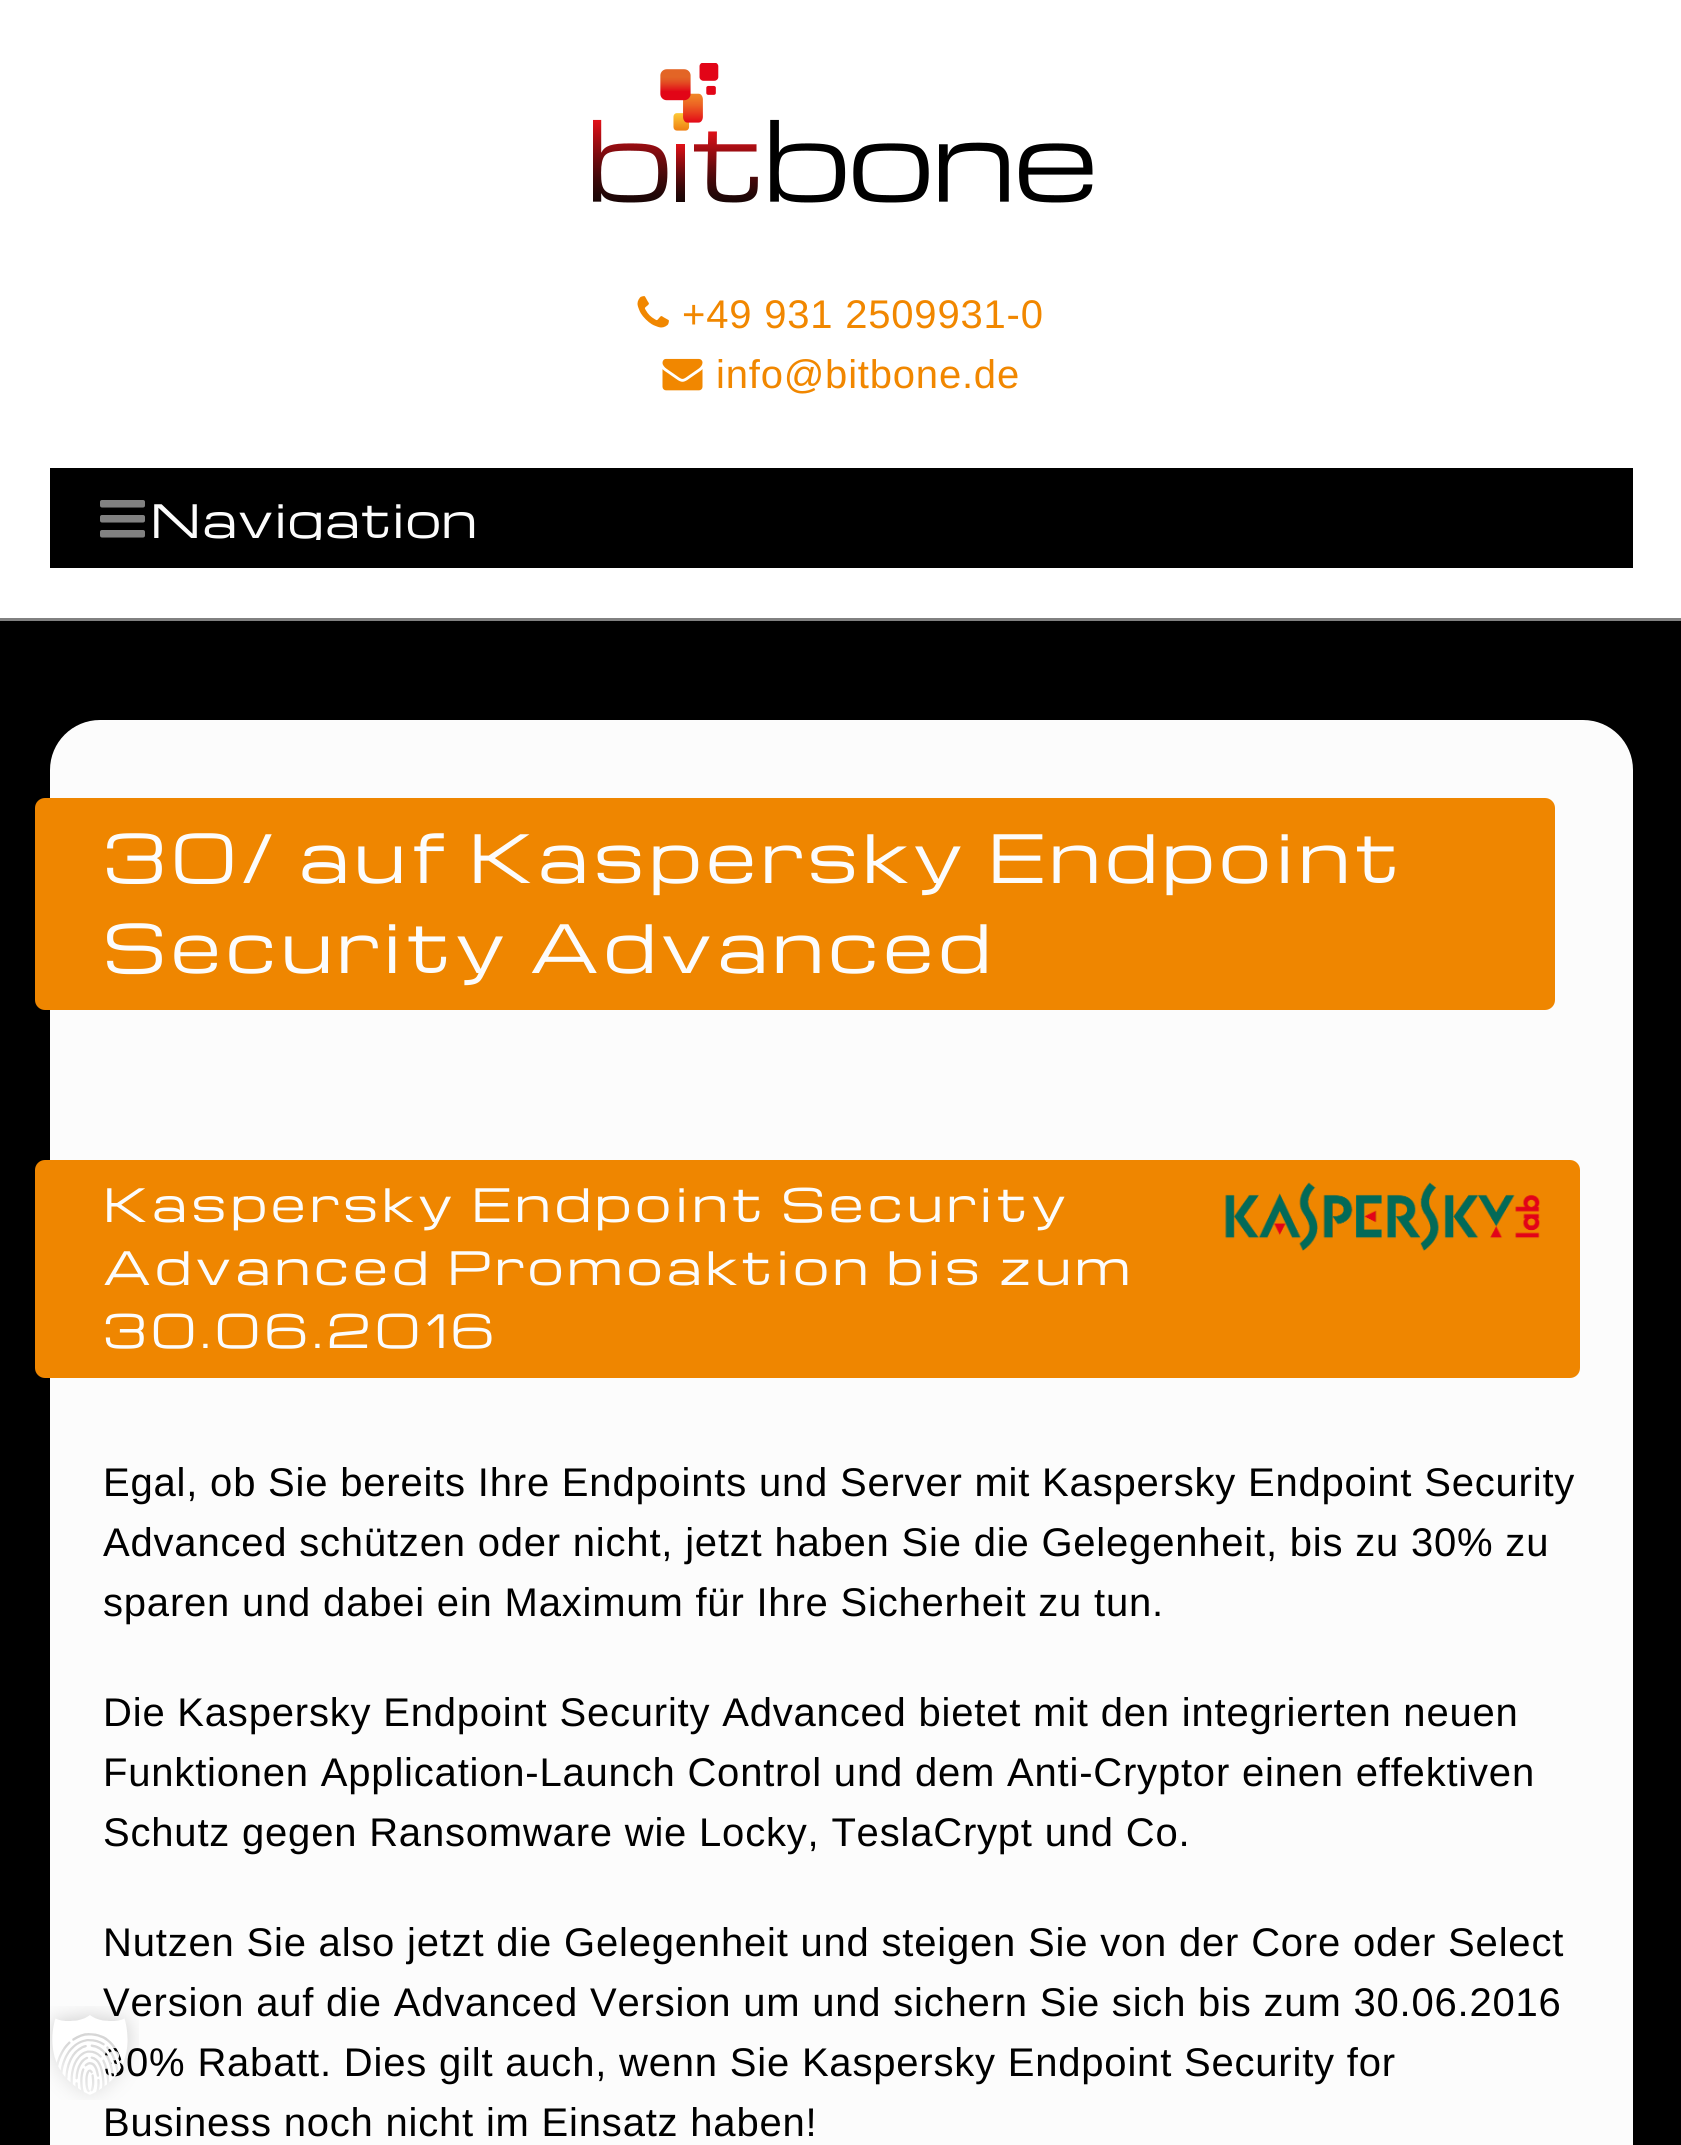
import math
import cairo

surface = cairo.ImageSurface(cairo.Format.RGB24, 1681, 2145)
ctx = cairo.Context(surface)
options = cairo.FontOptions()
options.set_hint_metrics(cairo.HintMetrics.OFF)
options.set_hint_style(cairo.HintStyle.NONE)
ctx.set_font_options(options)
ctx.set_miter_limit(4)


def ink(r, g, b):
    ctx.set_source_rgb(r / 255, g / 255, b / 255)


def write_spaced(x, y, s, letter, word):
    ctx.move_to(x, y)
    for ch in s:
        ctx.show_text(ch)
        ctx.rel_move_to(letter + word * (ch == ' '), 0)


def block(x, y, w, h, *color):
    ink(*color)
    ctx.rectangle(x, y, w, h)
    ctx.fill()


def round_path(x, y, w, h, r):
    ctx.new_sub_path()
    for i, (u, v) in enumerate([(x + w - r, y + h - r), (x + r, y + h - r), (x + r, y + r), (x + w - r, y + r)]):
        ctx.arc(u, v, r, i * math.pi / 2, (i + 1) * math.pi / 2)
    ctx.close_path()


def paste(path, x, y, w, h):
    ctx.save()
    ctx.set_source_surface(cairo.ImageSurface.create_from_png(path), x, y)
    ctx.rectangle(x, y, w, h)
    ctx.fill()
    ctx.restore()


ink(0, 0, 0)
ctx.paint()
block(0, 0, 1681, 618, 255, 255, 255)
block(0, 618, 1681, 3, 129, 129, 129)
paste("pic1.png", 593, 63, 500, 140)
paste("pic2.png", 637, 296, 32, 32)
ctx.select_font_face("Liberation Sans")
ctx.set_font_size(40)
ink(241, 135, 0)
write_spaced(682, 328, "+49 931 2509931-0", 0.8, 0)
paste("pic3.png", 662, 358, 41, 33)
write_spaced(716, 388, "info@bitbone.de", 0.8, 0)
block(50, 468, 1583, 100, 0, 0, 0)
paste("pic4.png", 100, 500, 45, 38)
ctx.save()
ctx.rectangle(150, 495, 1483, 45)
ctx.clip()
ctx.select_font_face("Michroma")
ctx.set_font_size(45)
ink(252, 252, 252)
write_spaced(150, 538, "Navigation", 1, 0)
ctx.restore()
ink(252, 252, 252)
round_path(50, 720, 1583, 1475, 50)
ctx.fill()
ink(0, 0, 0)
write_spaced(103, 2016, "Version auf die Advanced Version um und sichern Sie sich bis zum 30.06.2016", 0.8, 0)
write_spaced(103, 2076, "30% Rabatt. Dies gilt auch, wenn Sie Kaspersky Endpoint Security for", 0.8, 0)
paste("pic5.png", 50, 2006, 89, 94)
ink(239, 134, 0)
round_path(35, 798, 1520, 212, 10)
ctx.fill()
ctx.select_font_face("Michroma")
ctx.set_font_size(65)
ink(252, 252, 252)
write_spaced(103, 883, "30% auf Kaspersky Endpoint", 5.2, 0)
write_spaced(103, 973, "Security Advanced", 5.2, 0)
ink(239, 134, 0)
round_path(35, 1160, 1545, 218, 10)
ctx.fill()
ctx.set_font_size(45)
ink(252, 252, 252)
write_spaced(103, 1222, "Kaspersky Endpoint Security", 4.5, 0)
paste("pic6.png", 1225, 1182, 315, 69)
write_spaced(103, 1285, "Advanced Promoaktion bis zum", 4.5, 0)
write_spaced(103, 1348, "30.06.2016", 4.5, 0)
ctx.select_font_face("Liberation Sans")
ctx.set_font_size(40)
ink(0, 0, 0)
write_spaced(103, 1496, "Egal, ob Sie bereits Ihre Endpoints und Server mit Kaspersky Endpoint Security", 0.8, 0)
write_spaced(103, 1556, "Advanced schützen oder nicht, jetzt haben Sie die Gelegenheit, bis zu 30% zu", 0.8, 0)
write_spaced(103, 1616, "sparen und dabei ein Maximum für Ihre Sicherheit zu tun.", 0.8, 0)
write_spaced(103, 1726, "Die Kaspersky Endpoint Security Advanced bietet mit den integrierten neuen", 0.8, 0)
write_spaced(103, 1786, "Funktionen Application-Launch Control und dem Anti-Cryptor einen effektiven", 0.8, 0)
write_spaced(103, 1846, "Schutz gegen Ransomware wie Locky, TeslaCrypt und Co.", 0.8, 0)
write_spaced(103, 1956, "Nutzen Sie also jetzt die Gelegenheit und steigen Sie von der Core oder Select", 0.8, 0)
write_spaced(103, 2136, "Business noch nicht im Einsatz haben!", 0.8, 0)
surface.write_to_png("screenshot.png")
